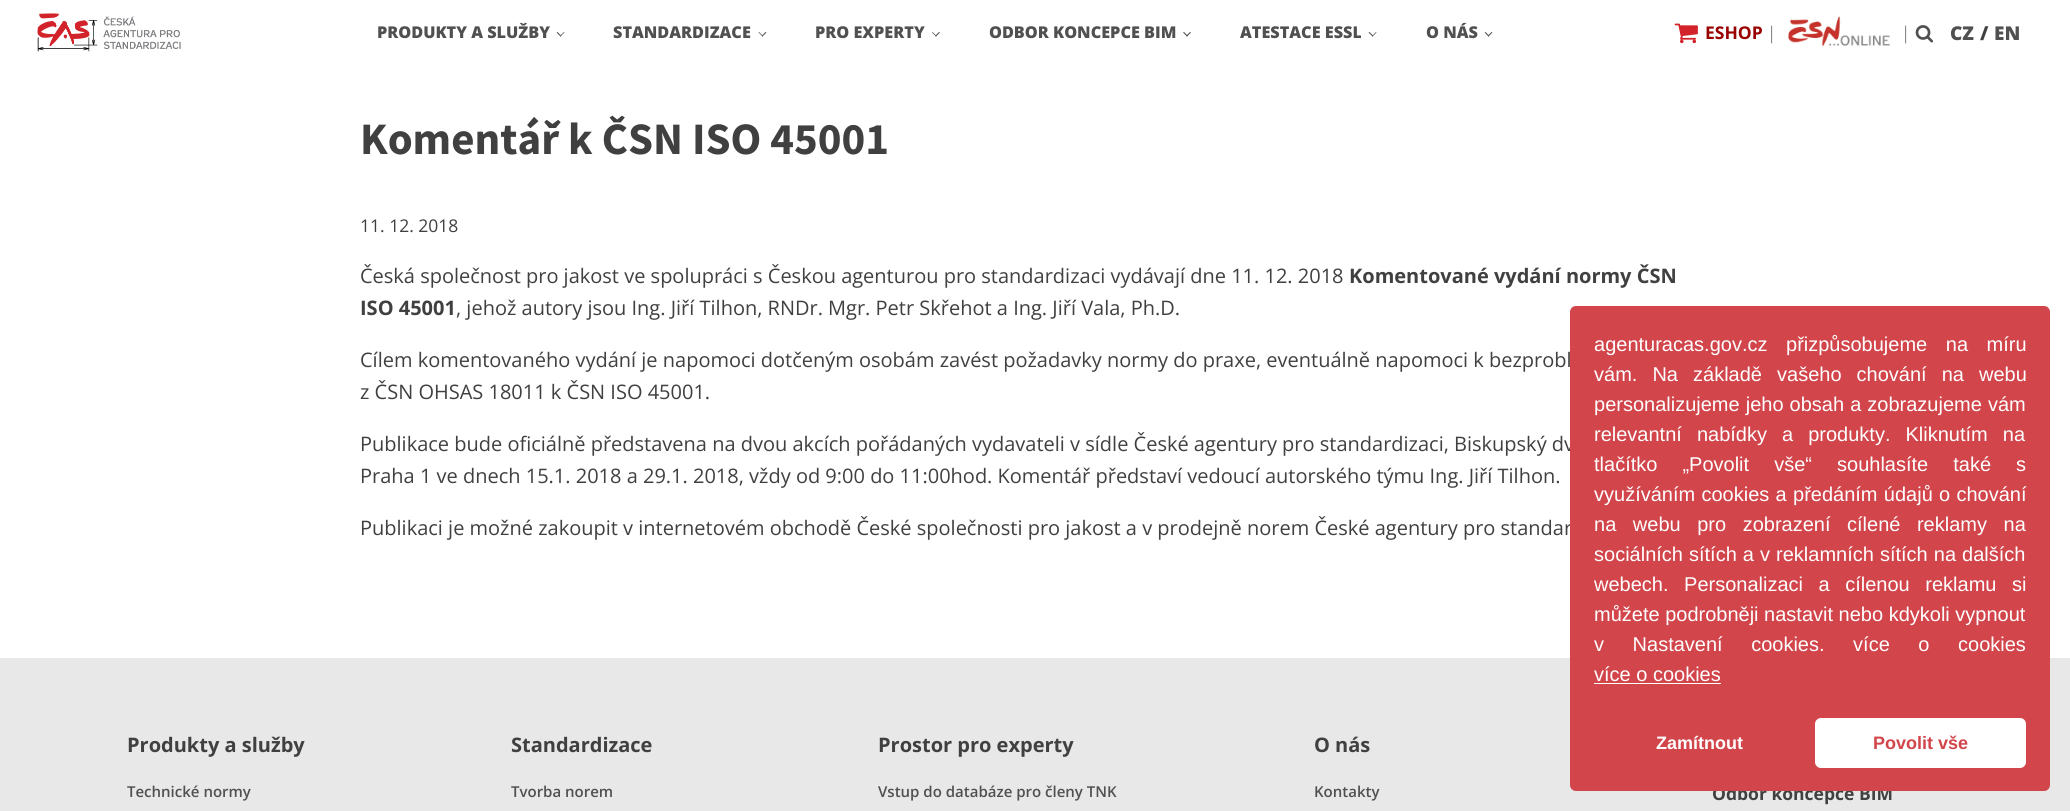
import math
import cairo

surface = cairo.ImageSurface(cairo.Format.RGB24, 2070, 811)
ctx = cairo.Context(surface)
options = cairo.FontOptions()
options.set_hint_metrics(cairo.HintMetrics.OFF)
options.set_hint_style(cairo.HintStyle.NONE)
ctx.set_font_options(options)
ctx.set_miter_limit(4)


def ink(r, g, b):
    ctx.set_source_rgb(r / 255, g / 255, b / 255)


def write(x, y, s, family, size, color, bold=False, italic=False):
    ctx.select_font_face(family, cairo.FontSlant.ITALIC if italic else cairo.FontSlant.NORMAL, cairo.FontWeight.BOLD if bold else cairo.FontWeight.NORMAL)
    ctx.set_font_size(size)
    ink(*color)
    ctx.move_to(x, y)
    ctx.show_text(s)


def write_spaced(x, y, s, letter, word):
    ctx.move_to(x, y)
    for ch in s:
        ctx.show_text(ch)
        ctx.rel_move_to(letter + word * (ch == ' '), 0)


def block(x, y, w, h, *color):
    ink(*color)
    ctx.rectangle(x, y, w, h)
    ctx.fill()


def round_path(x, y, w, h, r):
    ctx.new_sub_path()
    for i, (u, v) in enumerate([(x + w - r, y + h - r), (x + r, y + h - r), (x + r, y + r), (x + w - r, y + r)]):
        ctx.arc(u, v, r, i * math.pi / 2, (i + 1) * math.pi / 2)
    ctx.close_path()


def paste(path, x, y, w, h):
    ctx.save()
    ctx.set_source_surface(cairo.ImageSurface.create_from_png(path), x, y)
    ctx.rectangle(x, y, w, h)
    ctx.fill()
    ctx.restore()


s1 = dict(family="Open Sans ExtraBold", size=16.25, color=(80, 80, 80))
s2 = dict(family="Open Sans", size=17.5, color=(153, 0, 0), bold=True)
s3 = dict(family="Open Sans Light", size=17.5, color=(80, 80, 80))
s4 = dict(family="Open Sans ExtraBold", size=19, color=(80, 80, 80))
s5 = dict(family="Open Sans ExtraBold", size=19, color=(64, 64, 64))
s6 = dict(family="Source Sans Pro", size=45, color=(64, 64, 64), bold=True)
s7 = dict(family="Open Sans", size=17.5, color=(64, 64, 64))
s8 = dict(family="Open Sans", size=20, color=(64, 64, 64))
s9 = dict(family="Open Sans", size=20, color=(64, 64, 64), bold=True)
s10 = dict(family="Open Sans", size=17.5, color=(64, 64, 64), bold=True)
s11 = dict(family="Liberation Sans", size=20, color=(255, 255, 255))
s12 = dict(family="Liberation Sans", size=18, color=(255, 255, 255), bold=True)
s13 = dict(family="Liberation Sans", size=18, color=(209, 69, 75), bold=True)
s14 = dict(family="Open Sans SemiBold", size=15, color=(80, 80, 80))

ink(255, 255, 255)
ctx.paint()
paste("pic1.png", 37, 13, 144, 39)
write(377, 38, "PRODUKTY A SLUŽBY", **s1)
ctx.new_path()
ctx.move_to(564.5, 32.5)
ctx.line_to(560.5, 36.5)
ctx.line_to(560, 36)
ctx.line_to(564, 32)
ctx.close_path()
ctx.fill()
ctx.new_path()
ctx.move_to(561.5, 36)
ctx.line_to(560.5, 36.5)
ctx.line_to(556.5, 32.5)
ctx.line_to(557.5, 32)
ctx.close_path()
ctx.fill()
write(613, 38, "STANDARDIZACE", **s1)
ctx.new_path()
ctx.move_to(766.5, 32.5)
ctx.line_to(762.5, 36.5)
ctx.line_to(761.5, 36)
ctx.line_to(765.5, 32)
ctx.close_path()
ctx.fill()
ctx.new_path()
ctx.move_to(763, 36)
ctx.line_to(762.5, 36.5)
ctx.line_to(758.5, 32.5)
ctx.line_to(759, 32)
ctx.close_path()
ctx.fill()
write(815, 38, "PRO EXPERTY", **s1)
ctx.new_path()
ctx.move_to(940, 32.5)
ctx.line_to(936, 36.5)
ctx.line_to(935, 36)
ctx.line_to(939, 32)
ctx.close_path()
ctx.fill()
ctx.new_path()
ctx.move_to(936.5, 36)
ctx.line_to(936, 36.5)
ctx.line_to(932, 32.5)
ctx.line_to(932.5, 32)
ctx.close_path()
ctx.fill()
write(989, 38, "ODBOR KONCEPCE BIM", **s1)
ctx.new_path()
ctx.move_to(1191, 32.5)
ctx.line_to(1187, 36.5)
ctx.line_to(1186, 36)
ctx.line_to(1190, 32)
ctx.close_path()
ctx.fill()
ctx.new_path()
ctx.move_to(1188, 36)
ctx.line_to(1187, 36.5)
ctx.line_to(1183, 32.5)
ctx.line_to(1184, 32)
ctx.close_path()
ctx.fill()
write(1240, 38, "ATESTACE ESSL", **s1)
ctx.new_path()
ctx.move_to(1376.5, 32.5)
ctx.line_to(1372.5, 36.5)
ctx.line_to(1372, 36)
ctx.line_to(1376, 32)
ctx.close_path()
ctx.fill()
ctx.new_path()
ctx.move_to(1373.5, 36)
ctx.line_to(1372.5, 36.5)
ctx.line_to(1368.5, 32.5)
ctx.line_to(1369.5, 32)
ctx.close_path()
ctx.fill()
write(1426, 38, "O NÁS", **s1)
ctx.new_path()
ctx.move_to(1492.5, 32.5)
ctx.line_to(1488.5, 36.5)
ctx.line_to(1487.5, 36)
ctx.line_to(1491.5, 32)
ctx.close_path()
ctx.fill()
ctx.new_path()
ctx.move_to(1489.5, 36)
ctx.line_to(1488.5, 36.5)
ctx.line_to(1484.5, 32.5)
ctx.line_to(1485.5, 32)
ctx.close_path()
ctx.fill()
paste("pic2.png", 1674, 23, 24, 21)
write(1705, 39, "ESHOP", **s2)
write(1767, 39, "|", **s3)
paste("pic3.png", 1788, 16, 102, 30)
write(1901, 39, "|", **s3)
paste("pic4.png", 1915, 25, 19, 18)
write(1950, 40, "CZ", **s4)
write(1980, 40, "/", **s5)
write(1994, 40, "EN", **s4)
write(360, 154, "Komentář k ČSN ISO 45001", **s6)
write(360, 232, "11. 12. 2018", **s7)
write(360, 283, "Česká společnost pro jakost ve spolupráci s Českou agenturou pro standardizaci vydávají dne 11. 12. 2018", **s8)
write(1349, 283, "Komentované vydání normy ČSN", **s9)
write(360, 315, "ISO 45001", **s9)
write(456, 315, ", jehož autory jsou Ing. Jiří Tilhon, RNDr. Mgr. Petr Skřehot a Ing. Jiří Vala, Ph.D.", **s8)
write(360, 367, "Cílem komentovaného vydání je napomoci dotčeným osobám zavést požadavky normy do praxe, eventuálně napomoci k bezprobl", **s8)
write(360, 399, "z ČSN OHSAS 18011 k ČSN ISO 45001.", **s8)
write(360, 451, "Publikace bude oficiálně představena na dvou akcích pořádaných vydavateli v sídle České agentury pro standardizaci, Biskupský dv", **s8)
write(360, 483, "Praha 1 ve dnech 15.1. 2018 a 29.1. 2018, vždy od 9:00 do 11:00hod. Komentář představí vedoucí autorského týmu Ing. Jiří Tilhon.", **s8)
write(360, 535, "Publikaci je možné zakoupit v internetovém obchodě České společnosti pro jakost a v prodejně norem České agentury pro standar", **s8)
block(0, 658, 2070, 153, 232, 232, 232)
write(1712, 800, "Odbor koncepce BIM", **s10)
ink(209, 69, 75)
round_path(1570, 306, 480, 485, 6)
ctx.fill()
ctx.select_font_face("Liberation Sans")
ctx.set_font_size(20)
ink(255, 255, 255)
write_spaced(1594, 351, "agenturacas.gov.cz přizpůsobujeme na míru", 0, 13)
write_spaced(1594, 381, "vám. Na základě vašeho chování na webu", 0, 9.5)
write_spaced(1594, 411, "personalizujeme jeho obsah a zobrazujeme vám", 0, 0.5)
write_spaced(1594, 441, "relevantní nabídky a produkty. Kliknutím na", 0, 9.5)
write_spaced(1594, 471, "tlačítko „Povolit vše“ souhlasíte také s", 0, 19.5)
write_spaced(1594, 501, "využíváním cookies a předáním údajů o chování", 0, 0.75)
write_spaced(1594, 531, "na webu pro zobrazení cílené reklamy na", 0, 11)
write_spaced(1594, 561, "sociálních sítích a v reklamních sítích na dalších", 0, 0.5)
write_spaced(1594, 591, "webech. Personalizaci a cílenou reklamu si", 0, 10)
write(1594, 621, "můžete podrobněji nastavit nebo kdykoli vypnout", **s11)
write_spaced(1594, 651, "v Nastavení cookies. více o cookies", 0, 23)
write(1594, 681, "více o cookies", **s11)
block(1594, 683, 127, 1, 255, 255, 255)
write(1656, 749, "Zamítnout", **s12)
round_path(1815, 718, 211, 50, 6)
ctx.fill()
write(1873, 749, "Povolit vše", **s13)
write(127, 752, "Produkty a služby", **s9)
write(127, 797, "Technické normy", **s14)
write(511, 752, "Standardizace", **s9)
write(511, 797, "Tvorba norem", **s14)
write(878, 752, "Prostor pro experty", **s9)
write(878, 797, "Vstup do databáze pro členy TNK", **s14)
write(1314, 752, "O nás", **s9)
write(1314, 797, "Kontakty", **s14)
surface.write_to_png("screenshot.png")
